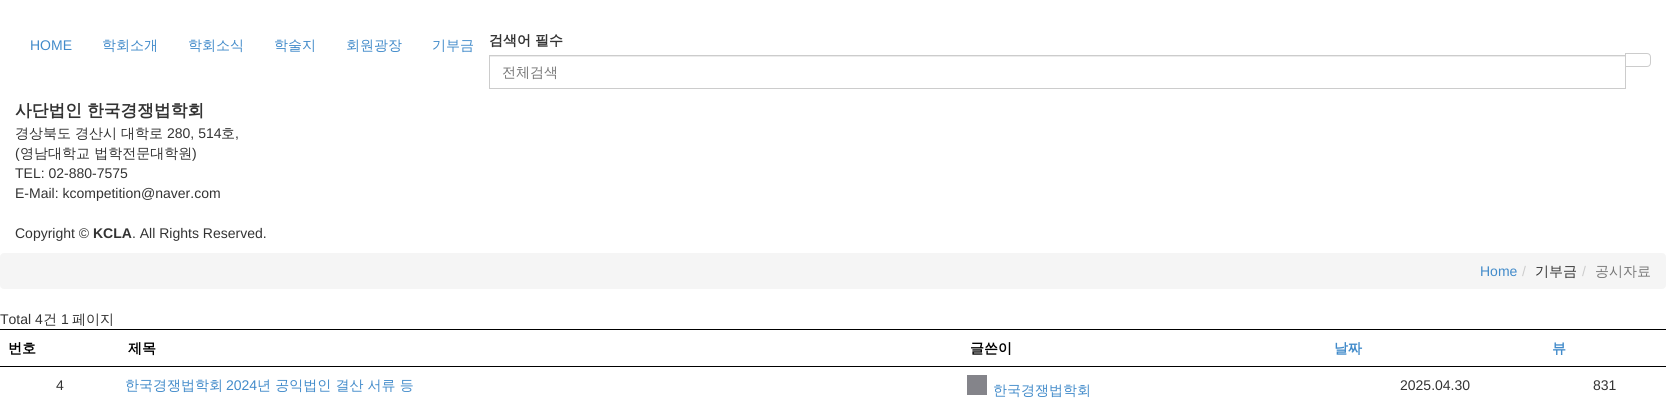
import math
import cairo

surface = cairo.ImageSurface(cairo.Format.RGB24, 1666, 403)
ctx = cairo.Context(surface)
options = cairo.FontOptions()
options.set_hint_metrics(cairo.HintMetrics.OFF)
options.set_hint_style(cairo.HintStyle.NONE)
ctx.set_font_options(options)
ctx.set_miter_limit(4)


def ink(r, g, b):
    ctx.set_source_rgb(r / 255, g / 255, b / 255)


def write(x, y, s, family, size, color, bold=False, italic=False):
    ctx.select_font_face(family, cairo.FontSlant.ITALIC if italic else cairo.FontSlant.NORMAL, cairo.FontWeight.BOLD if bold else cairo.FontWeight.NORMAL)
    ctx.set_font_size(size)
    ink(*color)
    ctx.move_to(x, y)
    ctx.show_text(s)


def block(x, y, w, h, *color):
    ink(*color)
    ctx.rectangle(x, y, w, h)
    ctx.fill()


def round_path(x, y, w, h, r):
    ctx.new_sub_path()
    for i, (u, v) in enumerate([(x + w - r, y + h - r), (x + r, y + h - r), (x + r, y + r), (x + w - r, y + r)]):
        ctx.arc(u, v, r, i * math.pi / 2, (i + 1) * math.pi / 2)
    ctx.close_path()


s1 = dict(family="Liberation Sans", size=14, color=(66, 139, 202))
s2 = dict(family="WenQuanYi Zen Hei Medium", size=14, color=(66, 139, 202))
s3 = dict(family="WenQuanYi Zen Hei", size=14, color=(51, 51, 51), bold=True)
s4 = dict(family="WenQuanYi Zen Hei Medium", size=14, color=(119, 119, 119))
s5 = dict(family="WenQuanYi Zen Hei", size=16.75, color=(51, 51, 51), bold=True)
s6 = dict(family="WenQuanYi Zen Hei Medium", size=14, color=(51, 51, 51))
s7 = dict(family="Liberation Sans", size=14, color=(51, 51, 51))
s8 = dict(family="Liberation Sans", size=14, color=(51, 51, 51), bold=True)
s9 = dict(family="Liberation Sans", size=14, color=(204, 204, 204))
s10 = dict(family="WenQuanYi Zen Hei", size=14, color=(0, 0, 0), bold=True)
s11 = dict(family="WenQuanYi Zen Hei", size=14, color=(66, 139, 202), bold=True)

ink(255, 255, 255)
ctx.paint()
write(30, 50, "HOME", **s1)
write(102, 50, "학회소개", **s2)
write(188, 50, "학회소식", **s2)
write(274, 50, "학술지", **s2)
write(346, 50, "회원광장", **s2)
write(432, 50, "기부금", **s2)
write(489, 45, "검색어", **s3)
write(535, 45, "필수", **s3)
ctx.new_path()
ctx.move_to(1625.5, 53.5)
ctx.line_to(1647, 53.5)
ctx.curve_to(1649, 53.5, 1650.5, 55, 1650.5, 57)
ctx.line_to(1650.5, 63)
ctx.curve_to(1650.5, 65, 1649, 66.5, 1647, 66.5)
ctx.line_to(1625.5, 66.5)
ctx.close_path()
ink(204, 204, 204)
ctx.set_line_width(1)
ctx.stroke()
block(490, 56, 1135, 1, 236, 236, 236)
ctx.rectangle(489.5, 55.5, 1136, 33)
ink(204, 204, 204)
ctx.stroke()
write(502, 77, "전체검색", **s4)
write(15, 116, "사단법인 한국경쟁법학회", **s5)
write(15, 138, "경상북도", **s6)
write(75, 138, "경산시", **s6)
write(121, 138, "대학로", **s6)
write(167, 138, "280, 514", **s7)
write(221, 138, "호", **s6)
write(235, 138, ",", **s7)
write(15, 158, "(", **s7)
write(20, 158, "영남대학교 법학전문대학원", **s6)
write(192, 158, ")", **s7)
write(15, 178, "TEL: 02-880-7575", **s7)
write(15, 198, "E-Mail: kcompetition@naver.com", **s7)
write(15, 238, "Copyright ©", **s7)
write(93, 238, "KCLA", **s8)
write(132, 238, ". All Rights Reserved.", **s7)
ink(245, 245, 245)
round_path(0, 253, 1666, 36, 4)
ctx.fill()
write(1480, 276, "Home", **s1)
write(1522, 276, "/", **s9)
write(1535, 276, "기부금", **s6)
write(1582, 276, "/", **s9)
write(1595, 276, "공시자료", **s4)
write(0, 324, "Total 4", **s7)
write(43, 324, "건", **s6)
write(61, 324, "1", **s7)
write(72, 324, "페이지", **s6)
block(0, 329, 1666, 1, 0, 0, 0)
write(8, 353, "번호", **s10)
write(128, 353, "제목", **s10)
write(970, 353, "글쓴이", **s10)
write(1334, 353, "날짜", **s11)
block(0, 366, 1666, 1, 0, 0, 0)
write(1552, 353, "뷰", **s11)
write(56, 390, "4", **s7)
write(125, 390, "한국경쟁법학회", **s2)
write(226, 390, "2024", **s1)
write(257, 390, "년 공익법인 결산 서류 등", **s2)
block(967, 375, 20, 20, 132, 132, 138)
write(993, 395, "한국경쟁법학회", **s2)
write(1400, 390, "2025.04.30", **s7)
write(1593, 390, "831", **s7)
surface.write_to_png("screenshot.png")
